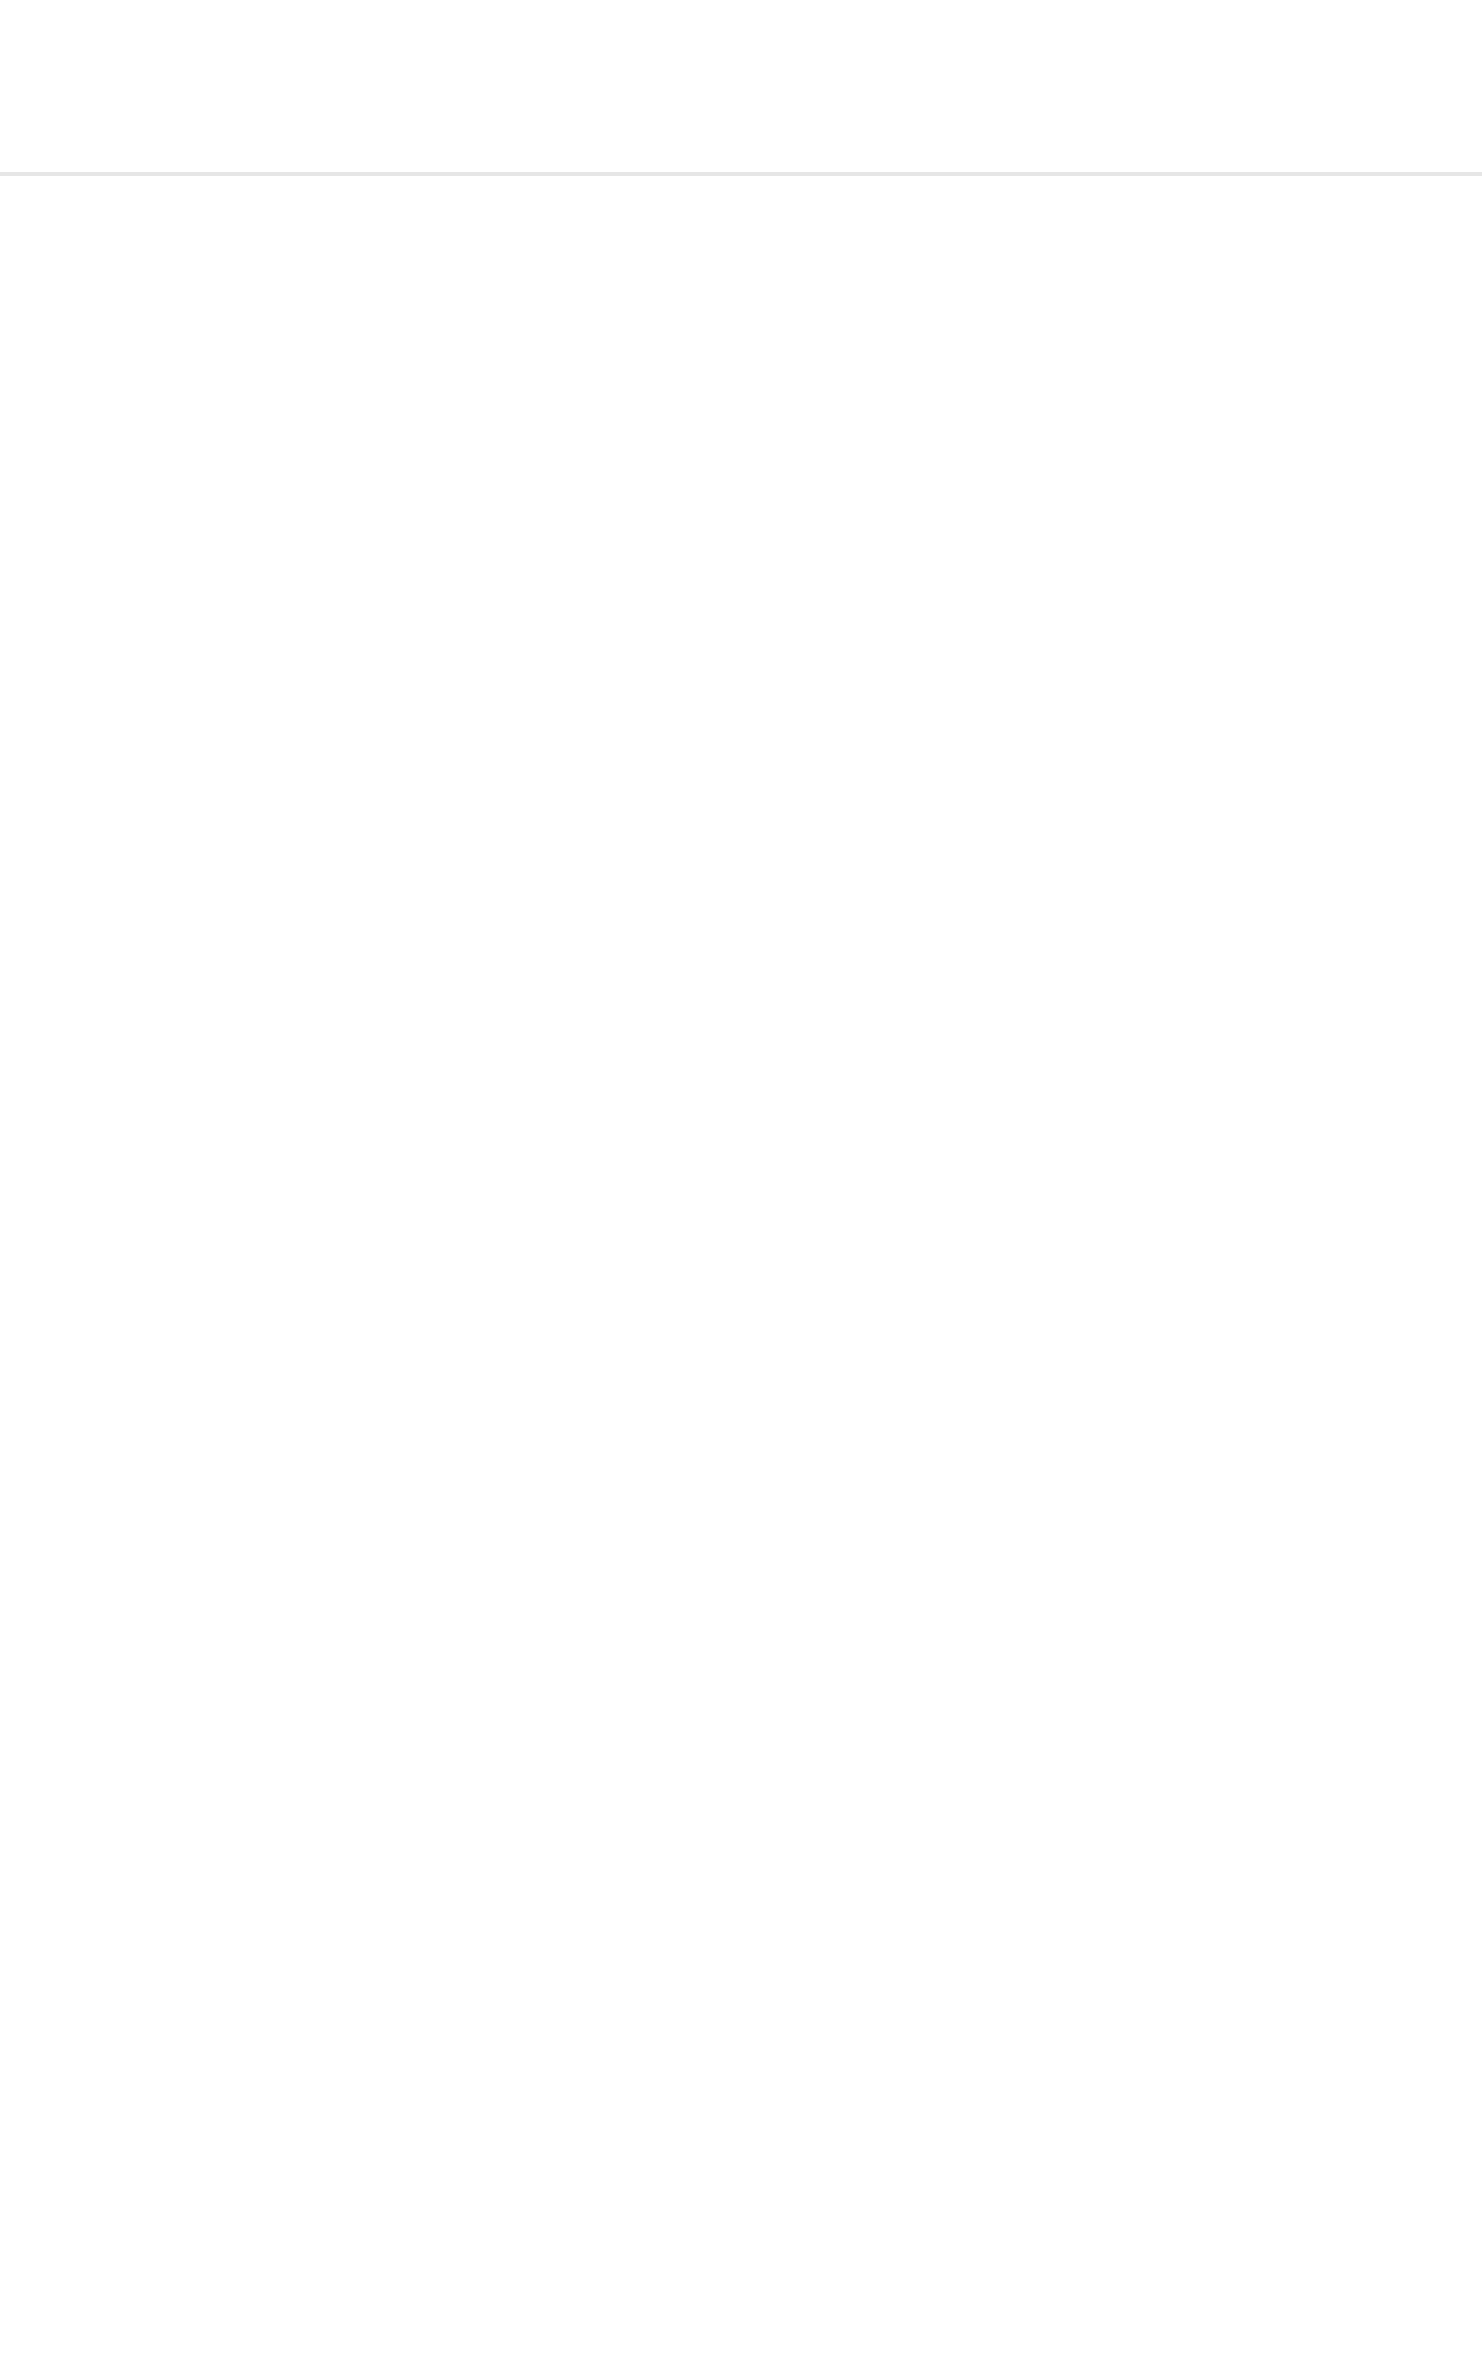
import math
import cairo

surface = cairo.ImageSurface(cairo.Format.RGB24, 1482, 2369)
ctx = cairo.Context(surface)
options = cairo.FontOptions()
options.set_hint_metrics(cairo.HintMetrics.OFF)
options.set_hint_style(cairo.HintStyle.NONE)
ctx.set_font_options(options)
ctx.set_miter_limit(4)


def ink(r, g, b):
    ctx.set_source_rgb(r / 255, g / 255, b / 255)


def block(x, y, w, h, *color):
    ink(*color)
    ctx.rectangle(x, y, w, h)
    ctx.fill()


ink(255, 255, 255)
ctx.paint()
block(0, 172, 1482, 4, 230, 230, 230)
surface.write_to_png("screenshot.png")
